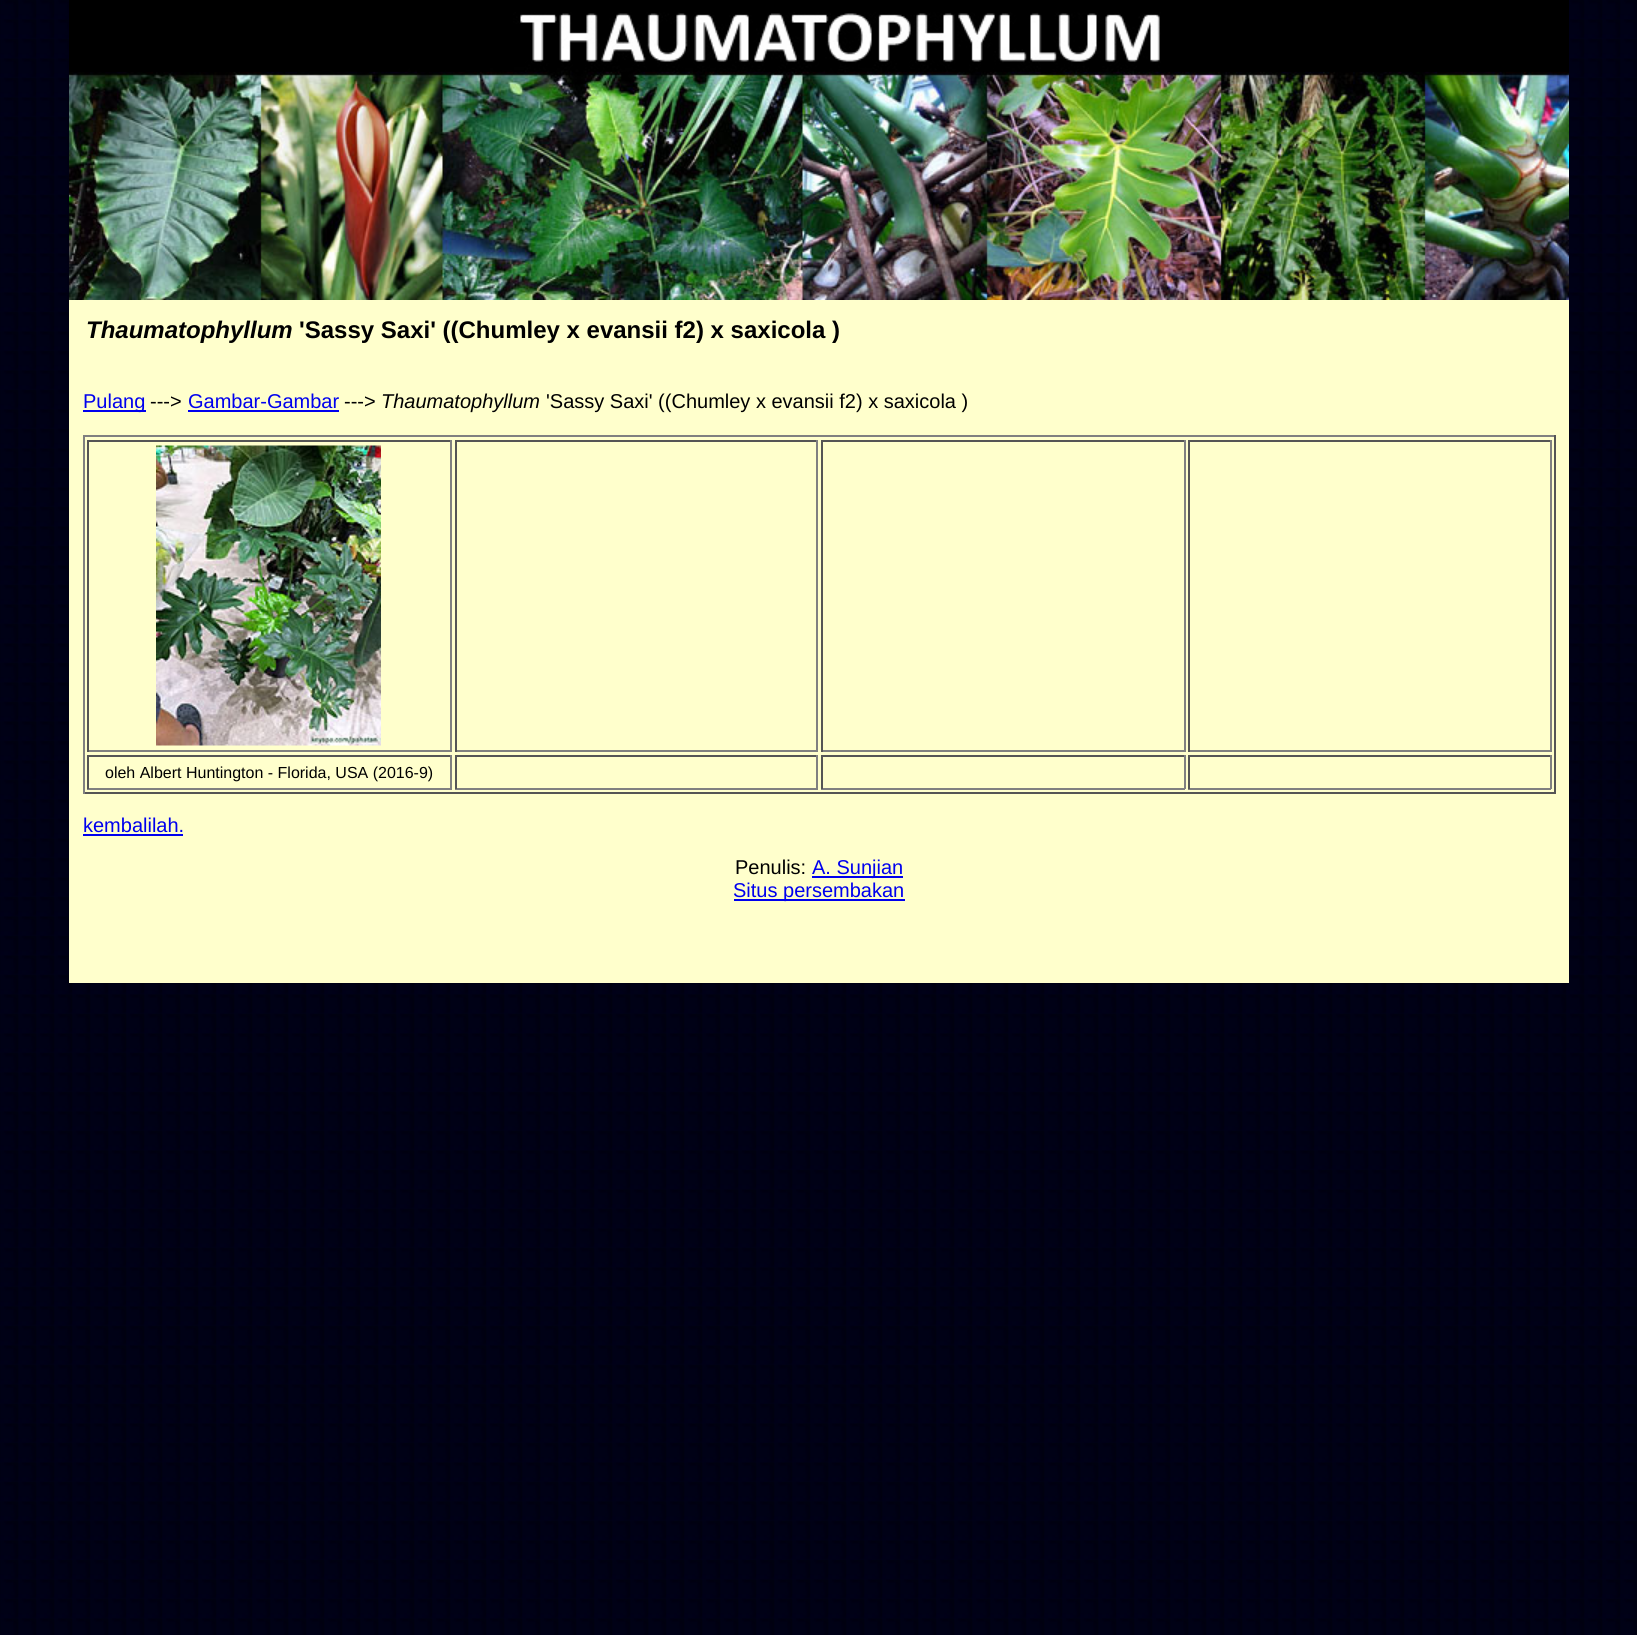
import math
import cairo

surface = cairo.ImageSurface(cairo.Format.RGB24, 1637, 1635)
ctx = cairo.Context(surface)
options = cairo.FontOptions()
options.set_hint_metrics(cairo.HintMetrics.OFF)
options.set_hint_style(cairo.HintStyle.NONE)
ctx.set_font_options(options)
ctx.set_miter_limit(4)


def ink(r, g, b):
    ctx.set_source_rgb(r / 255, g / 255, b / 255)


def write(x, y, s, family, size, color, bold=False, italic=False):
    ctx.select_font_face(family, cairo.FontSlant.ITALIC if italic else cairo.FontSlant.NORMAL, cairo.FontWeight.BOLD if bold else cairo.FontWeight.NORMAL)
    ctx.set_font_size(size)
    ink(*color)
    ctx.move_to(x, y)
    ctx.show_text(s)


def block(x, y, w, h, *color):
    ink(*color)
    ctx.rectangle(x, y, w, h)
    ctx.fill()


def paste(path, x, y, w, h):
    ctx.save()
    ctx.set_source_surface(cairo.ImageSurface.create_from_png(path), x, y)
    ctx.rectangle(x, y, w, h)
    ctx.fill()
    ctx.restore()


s1 = dict(family="Liberation Sans", size=24, color=(0, 0, 0), bold=True, italic=True)
s2 = dict(family="Liberation Sans", size=24, color=(0, 0, 0), bold=True)
s3 = dict(family="Liberation Sans", size=20, color=(0, 0, 238))
s4 = dict(family="Liberation Sans", size=20, color=(0, 0, 0))
s5 = dict(family="Liberation Sans", size=20, color=(0, 0, 0), italic=True)
s6 = dict(family="Liberation Sans", size=16, color=(0, 0, 0))

ink(255, 255, 255)
ctx.paint()
paste("pic1.png", 0, 0, 1637, 1635)
paste("pic2.png", 69, 0, 1500, 300)
block(69, 300, 1500, 683, 255, 255, 204)
write(86, 338, "Thaumatophyllum", **s1)
write(299, 338, "'Sassy Saxi' ((Chumley x evansii f2) x saxicola )", **s2)
block(83, 410, 63, 2, 0, 0, 238)
write(83, 408, "Pulang", **s3)
write(150, 408, "--->", **s4)
write(188, 408, "Gambar-Gambar", **s3)
block(188, 410, 151, 2, 0, 0, 238)
write(344, 408, "--->", **s4)
write(381, 408, "Thaumatophyllum", **s5)
write(546, 408, "'Sassy Saxi' ((Chumley x evansii f2) x saxicola )", **s4)
block(83, 435, 1473, 2, 128, 128, 128)
block(1554, 435, 2, 359, 85, 85, 85)
block(83, 792, 1473, 2, 85, 85, 85)
block(83, 435, 2, 359, 128, 128, 128)
block(87, 440, 365, 2, 85, 85, 85)
block(450, 440, 2, 312, 128, 128, 128)
block(87, 750, 365, 2, 128, 128, 128)
block(87, 440, 2, 312, 85, 85, 85)
paste("pic3.png", 156, 445, 225, 301)
block(455, 440, 363, 2, 85, 85, 85)
block(816, 440, 2, 312, 128, 128, 128)
block(455, 750, 363, 2, 128, 128, 128)
block(455, 440, 2, 312, 85, 85, 85)
block(821, 440, 364, 2, 85, 85, 85)
block(1184, 440, 2, 312, 128, 128, 128)
block(821, 750, 364, 2, 128, 128, 128)
block(821, 440, 2, 312, 85, 85, 85)
block(1188, 440, 363, 2, 85, 85, 85)
block(1550, 440, 2, 312, 128, 128, 128)
block(1188, 750, 363, 2, 128, 128, 128)
block(1188, 440, 2, 312, 85, 85, 85)
block(87, 755, 365, 2, 85, 85, 85)
block(450, 755, 2, 34, 128, 128, 128)
block(87, 788, 365, 2, 128, 128, 128)
block(87, 755, 2, 34, 85, 85, 85)
write(105, 778, "oleh Albert Huntington - Florida, USA (2016-9)", **s6)
block(455, 755, 363, 2, 85, 85, 85)
block(816, 755, 2, 34, 128, 128, 128)
block(455, 788, 363, 2, 128, 128, 128)
block(455, 755, 2, 34, 85, 85, 85)
block(821, 755, 364, 2, 85, 85, 85)
block(1184, 755, 2, 34, 128, 128, 128)
block(821, 788, 364, 2, 128, 128, 128)
block(821, 755, 2, 34, 85, 85, 85)
block(1188, 755, 363, 2, 85, 85, 85)
block(1550, 755, 2, 34, 128, 128, 128)
block(1188, 788, 363, 2, 128, 128, 128)
block(1188, 755, 2, 34, 85, 85, 85)
write(83, 832, "kembalilah.", **s3)
block(83, 834, 100, 2, 0, 0, 238)
write(735, 874, "Penulis:", **s4)
block(812, 876, 91, 2, 0, 0, 238)
write(812, 874, "A. Sunjian", **s3)
block(734, 899, 171, 2, 0, 0, 238)
write(733, 897, "Situs persembakan", **s3)
surface.write_to_png("screenshot.png")
